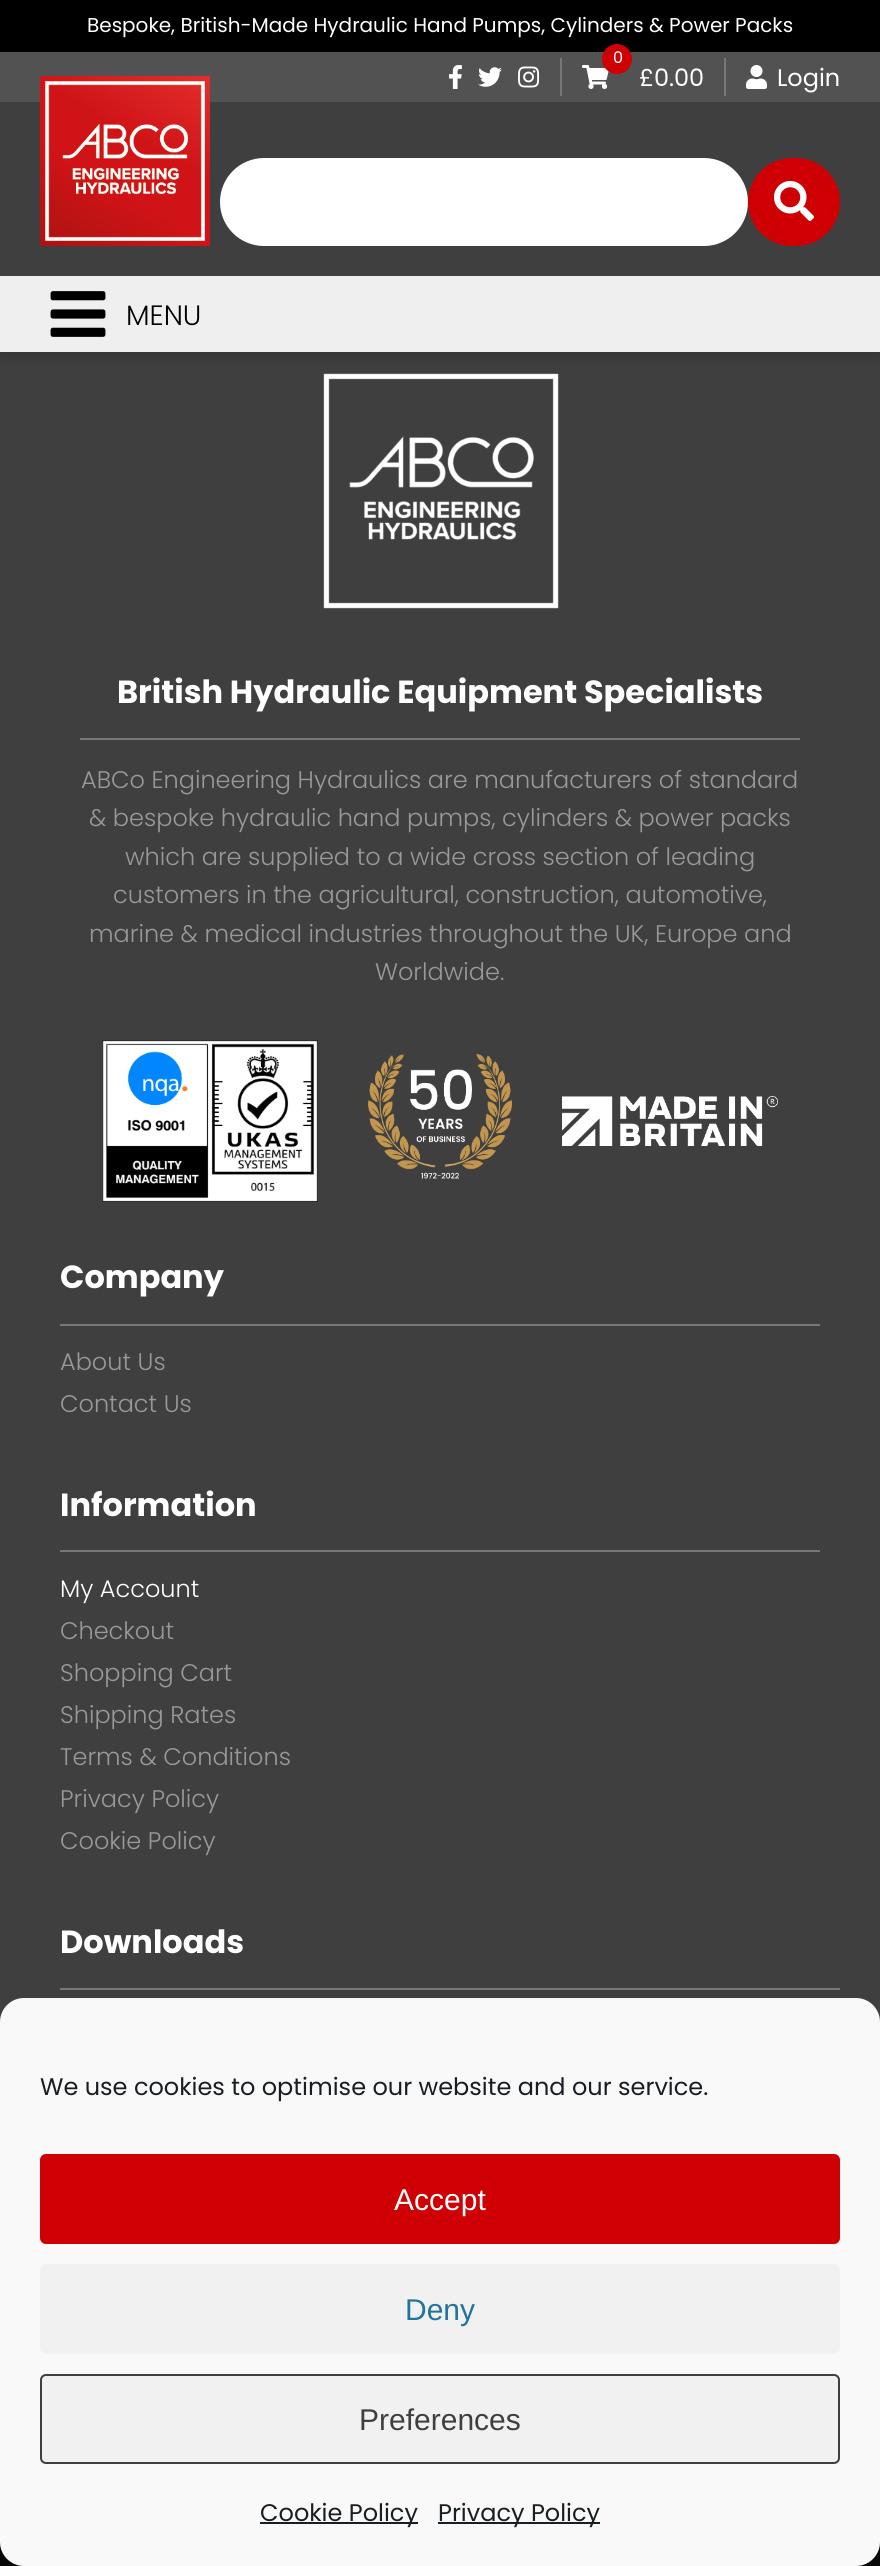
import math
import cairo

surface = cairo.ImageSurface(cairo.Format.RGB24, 880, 2566)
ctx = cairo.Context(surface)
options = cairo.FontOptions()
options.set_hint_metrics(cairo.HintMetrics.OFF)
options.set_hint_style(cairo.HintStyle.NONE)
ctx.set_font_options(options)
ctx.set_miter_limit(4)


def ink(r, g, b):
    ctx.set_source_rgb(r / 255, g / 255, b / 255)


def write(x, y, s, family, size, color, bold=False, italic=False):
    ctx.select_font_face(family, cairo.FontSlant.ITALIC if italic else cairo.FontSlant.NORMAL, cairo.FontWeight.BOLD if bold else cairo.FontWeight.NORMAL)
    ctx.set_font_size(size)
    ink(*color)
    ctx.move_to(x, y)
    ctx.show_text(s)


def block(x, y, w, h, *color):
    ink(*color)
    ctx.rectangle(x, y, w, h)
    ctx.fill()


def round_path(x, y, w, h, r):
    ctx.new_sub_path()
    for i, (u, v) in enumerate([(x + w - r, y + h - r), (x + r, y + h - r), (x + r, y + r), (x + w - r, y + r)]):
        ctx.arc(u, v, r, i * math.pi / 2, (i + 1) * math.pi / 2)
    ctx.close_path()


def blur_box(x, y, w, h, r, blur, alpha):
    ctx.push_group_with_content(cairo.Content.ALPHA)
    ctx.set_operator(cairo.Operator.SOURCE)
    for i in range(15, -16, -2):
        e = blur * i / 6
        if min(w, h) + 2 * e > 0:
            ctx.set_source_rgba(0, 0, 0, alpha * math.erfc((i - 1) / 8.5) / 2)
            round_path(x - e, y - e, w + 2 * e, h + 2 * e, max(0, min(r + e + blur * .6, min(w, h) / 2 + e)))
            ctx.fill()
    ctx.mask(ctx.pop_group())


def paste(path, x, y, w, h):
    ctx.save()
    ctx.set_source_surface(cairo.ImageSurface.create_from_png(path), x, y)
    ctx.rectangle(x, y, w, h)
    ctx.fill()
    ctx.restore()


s1 = dict(family="Poppins", size=20, color=(255, 255, 255))
s2 = dict(family="Poppins", size=16, color=(255, 255, 255))
s3 = dict(family="Poppins", size=24, color=(255, 255, 255))
s4 = dict(family="Poppins Light", size=28, color=(0, 0, 0))
s5 = dict(family="Poppins", size=32, color=(255, 255, 255), bold=True)
s6 = dict(family="Poppins Light", size=24, color=(153, 153, 153))
s7 = dict(family="Poppins Light", size=24, color=(255, 255, 255))
s8 = dict(family="Poppins", size=24, color=(25, 30, 35))
s9 = dict(family="Liberation Sans", size=30, color=(255, 255, 255))
s10 = dict(family="Liberation Sans", size=30, color=(33, 117, 155))
s11 = dict(family="Liberation Sans", size=30, color=(64, 63, 63))

ink(64, 63, 63)
ctx.paint()
paste("pic9.png", 323, 373, 236, 236)
ink(0, 0, 0)
blur_box(0, 0, 880, 352, 0, 10, 0.3)
block(0, 0, 880, 52, 0, 0, 0)
write(87, 32, "Bespoke, British-Made Hydraulic Hand Pumps, Cylinders & Power Packs", **s1)
block(0, 52, 880, 50, 83, 82, 82)
block(0, 102, 880, 174, 64, 63, 63)
paste("pic1.png", 40, 76, 170, 170)
block(724, 58, 2, 38, 119, 119, 119)
block(560, 58, 2, 38, 119, 119, 119)
paste("pic2.png", 449, 65, 13, 24)
paste("pic3.png", 478, 67, 24, 20)
paste("pic4.png", 518, 66, 22, 22)
paste("pic5.png", 582, 65, 27, 24)
ink(206, 0, 4)
ctx.arc(617, 59, 15, 0, 2 * math.pi)
ctx.fill()
write(613, 63, "0", **s2)
write(639, 86, "£0.00", **s3)
paste("pic6.png", 746, 65, 21, 24)
write(777, 86, "Login", **s3)
round_path(220, 158, 528, 88, 44)
ctx.fill()
ink(206, 0, 4)
round_path(748, 158, 92, 88, 44)
ctx.fill()
paste("pic7.png", 774, 181, 40, 40)
block(0, 276, 880, 76, 239, 239, 239)
paste("pic8.png", 50, 291, 56, 46)
write(126, 325, "MENU", **s4)
ctx.set_source_rgba(0, 0, 0, 0.85)
ctx.rectangle(0, 2542, 880, 24)
ctx.fill()
block(80, 738, 720, 2, 119, 119, 119)
write(117, 703, "British Hydraulic Equipment Specialists", **s5)
write(81, 788, "ABCo Engineering Hydraulics are manufacturers of standard", **s6)
write(89, 826, "& bespoke hydraulic hand pumps, cylinders & power packs", **s6)
write(125, 865, "which are supplied to a wide cross section of leading", **s6)
write(113, 903, "customers in the agricultural, construction, automotive,", **s6)
write(89, 942, "marine & medical industries throughout the UK, Europe and", **s6)
write(375, 980, "Worldwide.", **s6)
paste("pic10.png", 102, 1040, 216, 162)
paste("pic11.png", 368, 1054, 144, 125)
paste("pic12.png", 562, 1096, 216, 50)
block(60, 1324, 760, 2, 119, 119, 119)
write(60, 1288, "Company", **s5)
write(60, 1370, "About Us", **s6)
write(60, 1412, "Contact Us", **s6)
block(60, 1550, 760, 2, 119, 119, 119)
write(60, 1516, "Information", **s5)
write(60, 1597, "My Account", **s7)
write(60, 1639, "Checkout", **s6)
write(60, 1681, "Shopping Cart", **s6)
write(60, 1723, "Shipping Rates", **s6)
write(60, 1765, "Terms & Conditions", **s6)
write(60, 1807, "Privacy Policy", **s6)
write(60, 1849, "Cookie Policy", **s6)
block(60, 1988, 780, 2, 119, 119, 119)
write(60, 1953, "Downloads", **s5)
ink(0, 0, 0)
blur_box(0, 2010, 880, 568, 24, 6, 0.23)
ink(249, 249, 249)
round_path(0, 1998, 880, 568, 24)
ctx.fill()
write(40, 2095, "We use cookies to optimise our website and our service.", **s8)
ink(206, 0, 4)
round_path(41, 2155, 798, 88, 5)
ctx.fill_preserve()
ctx.stroke()
write(394, 2210, "Accept", **s9)
ink(241, 241, 241)
round_path(40, 2264, 800, 90, 6)
ctx.fill()
write(405, 2320, "Deny", **s10)
ink(241, 241, 241)
round_path(41, 2375, 798, 88, 5)
ctx.fill_preserve()
ink(64, 63, 63)
ctx.stroke()
write(359, 2430, "Preferences", **s11)
block(260, 2522, 158, 2, 25, 30, 35)
write(260, 2521, "Cookie Policy", **s8)
block(438, 2522, 162, 2, 25, 30, 35)
write(438, 2521, "Privacy Policy", **s8)
surface.write_to_png("screenshot.png")
